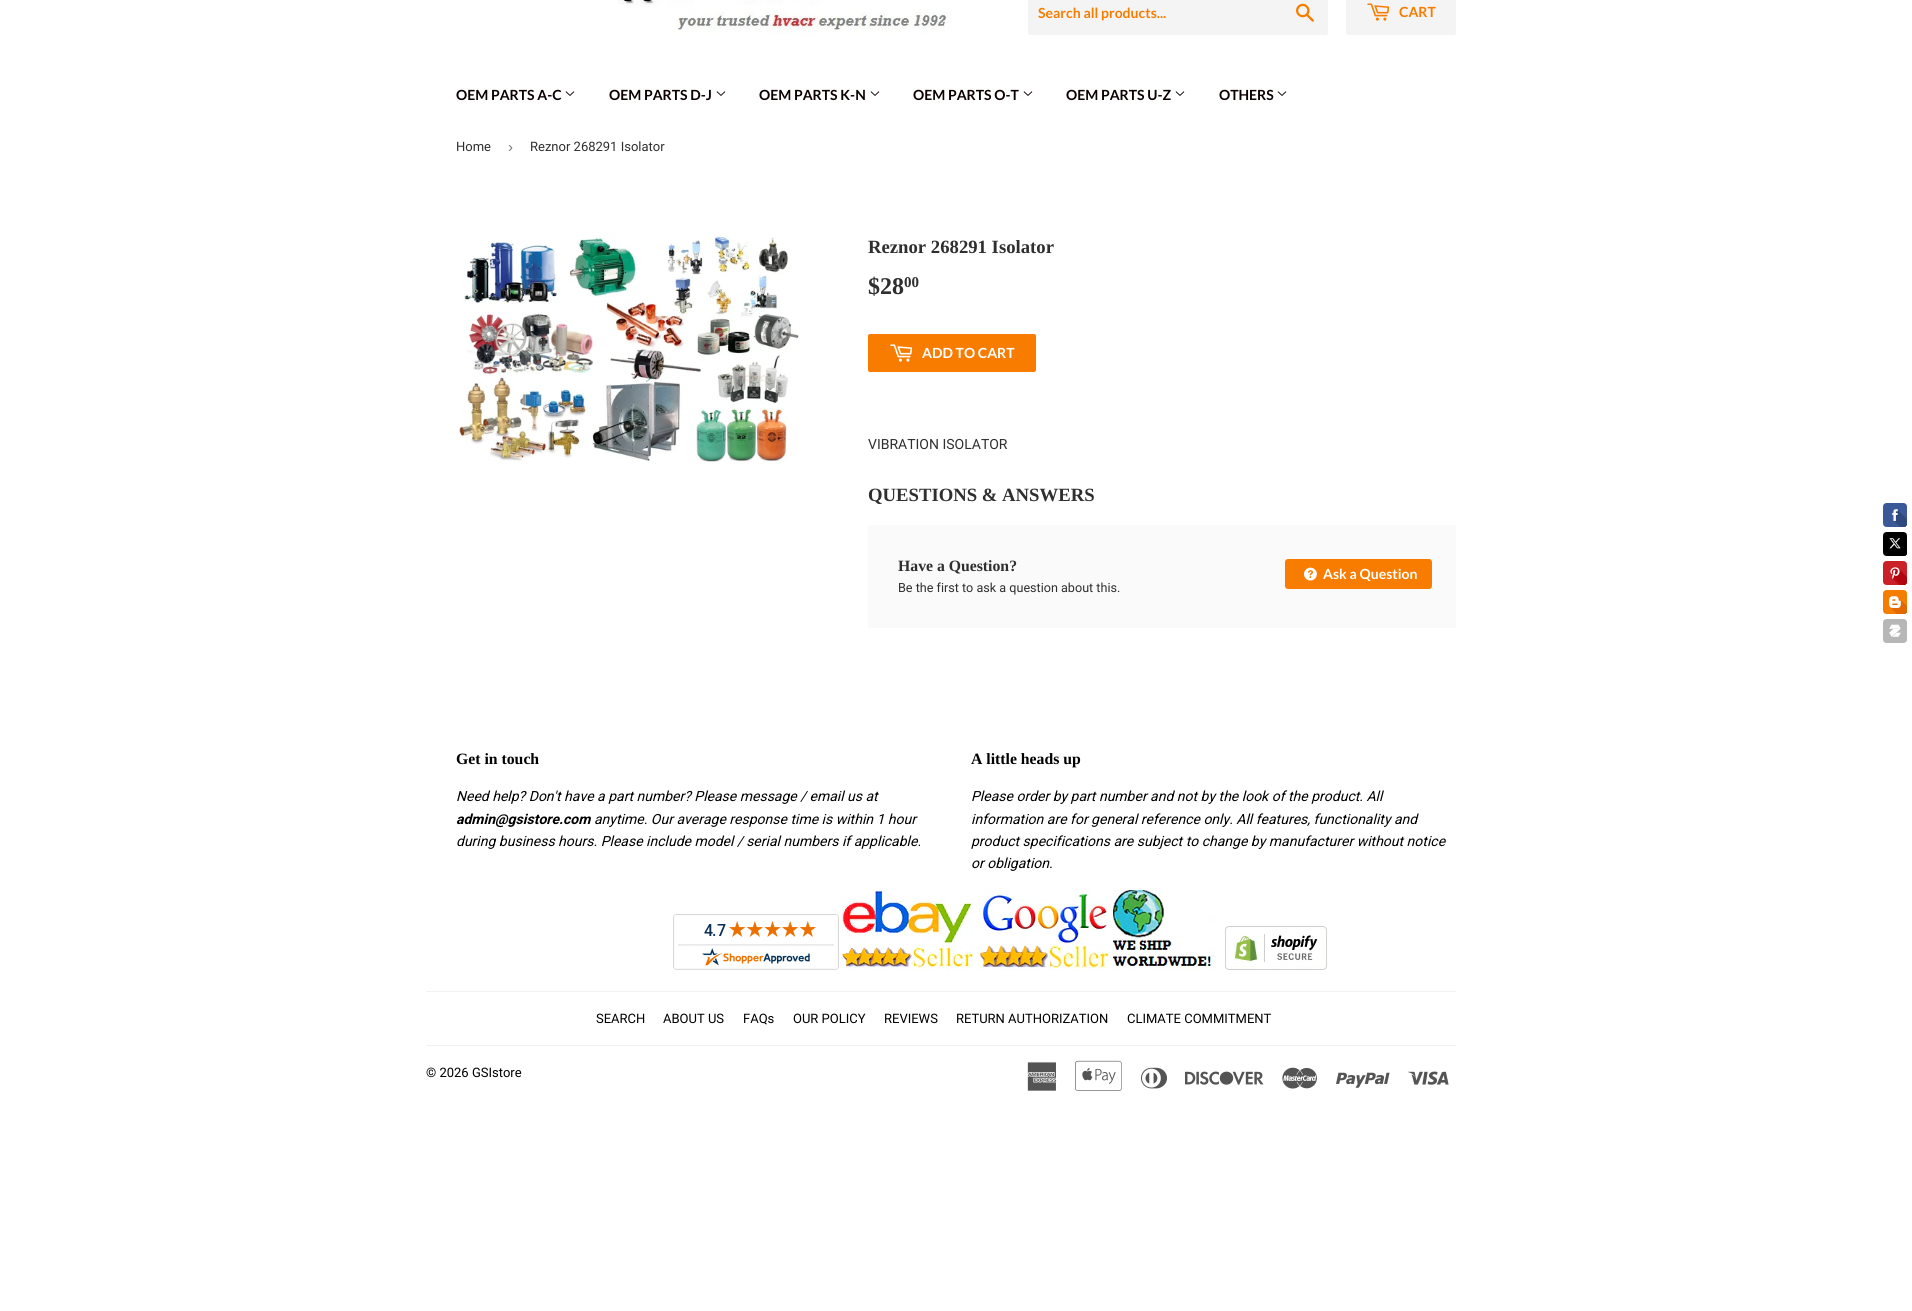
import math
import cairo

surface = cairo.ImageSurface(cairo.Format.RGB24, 1912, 1311)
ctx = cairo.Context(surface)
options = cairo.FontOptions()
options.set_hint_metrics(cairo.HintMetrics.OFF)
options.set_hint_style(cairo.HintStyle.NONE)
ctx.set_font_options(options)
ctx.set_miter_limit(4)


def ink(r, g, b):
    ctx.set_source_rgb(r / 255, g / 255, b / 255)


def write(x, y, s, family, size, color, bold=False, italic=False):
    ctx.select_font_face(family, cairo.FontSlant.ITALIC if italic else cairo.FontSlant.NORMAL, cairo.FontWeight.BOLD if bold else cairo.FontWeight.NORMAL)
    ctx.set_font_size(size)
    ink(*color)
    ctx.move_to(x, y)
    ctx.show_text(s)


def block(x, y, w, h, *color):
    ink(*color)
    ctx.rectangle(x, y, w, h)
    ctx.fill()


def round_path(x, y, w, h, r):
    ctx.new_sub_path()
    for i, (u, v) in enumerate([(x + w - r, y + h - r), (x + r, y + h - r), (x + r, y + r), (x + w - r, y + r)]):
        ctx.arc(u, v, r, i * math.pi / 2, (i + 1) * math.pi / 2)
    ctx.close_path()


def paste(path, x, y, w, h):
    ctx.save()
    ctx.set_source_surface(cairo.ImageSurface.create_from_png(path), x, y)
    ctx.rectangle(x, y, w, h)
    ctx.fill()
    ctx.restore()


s1 = dict(family="Lato", size=14, color=(247, 124, 0), bold=True)
s2 = dict(family="Lato", size=14, color=(12, 0, 0), bold=True)
s3 = dict(family="Roboto", size=13, color=(47, 47, 47))
s4 = dict(family="Liberation Sans", size=15, color=(118, 118, 118))
s5 = dict(family="Liberation Serif", size=18.7, color=(47, 47, 47), bold=True)
s6 = dict(family="Liberation Serif", size=24, color=(47, 47, 47), bold=True)
s7 = dict(family="Liberation Serif", size=15, color=(47, 47, 47), bold=True)
s8 = dict(family="Lato", size=14, color=(255, 255, 255), bold=True)
s9 = dict(family="Roboto", size=14, color=(47, 47, 47))
s10 = dict(family="Liberation Serif", size=15.75, color=(47, 47, 47), bold=True)
s11 = dict(family="Roboto", size=12.6, color=(47, 47, 47))
s12 = dict(family="Liberation Serif", size=15.75, color=(0, 0, 0), bold=True)
s13 = dict(family="Roboto", size=14, color=(0, 0, 0), italic=True)
s14 = dict(family="Roboto", size=14, color=(0, 0, 0), bold=True, italic=True)
s15 = dict(family="Roboto", size=13, color=(0, 0, 0))

ink(255, 255, 255)
ctx.paint()
paste("pic1.png", 617, 0, 334, 35)
ink(244, 244, 244)
round_path(1028, -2, 300, 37, 2)
ctx.fill()
write(1038, 18, "Search all products...", **s1)
paste("pic2.png", 1296, 3, 18, 19)
ink(244, 244, 244)
round_path(1346, -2, 110, 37, 2)
ctx.fill()
paste("pic3.png", 1367, 3, 23, 18)
write(1399, 17, "CART", **s1)
write(456, 100, "OEM PARTS A-C", **s2)
paste("pic4.png", 565, 91, 10, 5)
write(609, 100, "OEM PARTS D-J", **s2)
paste("pic4.png", 716, 91, 10, 5)
write(759, 100, "OEM PARTS K-N", **s2)
paste("pic4.png", 870, 91, 10, 5)
write(913, 100, "OEM PARTS O-T", **s2)
paste("pic4.png", 1023, 91, 10, 5)
write(1066, 100, "OEM PARTS U-Z", **s2)
paste("pic4.png", 1175, 91, 10, 5)
write(1219, 100, "OTHERS", **s2)
paste("pic4.png", 1277, 91, 10, 5)
write(456, 151, "Home", **s3)
write(508, 152, "›", **s4)
write(530, 151, "Reznor 268291 Isolator", **s3)
paste("pic5.png", 459, 234, 340, 230)
write(868, 253, "Reznor 268291 Isolator", **s5)
write(868, 294, "$28", **s6)
write(904, 287, "00", **s7)
ink(247, 124, 0)
round_path(868, 334, 168, 38, 2)
ctx.fill()
paste("pic6.png", 890, 344, 23, 18)
write(922, 358, "ADD TO CART", **s8)
write(868, 449, "VIBRATION ISOLATOR", **s9)
write(868, 501, "QUESTIONS & ANSWERS", **s5)
block(868, 525, 588, 103, 250, 250, 250)
write(898, 571, "Have a Question?", **s10)
write(898, 592, "Be the first to ask a question about this.", **s11)
ink(247, 124, 0)
round_path(1285, 559, 147, 30, 3)
ctx.fill()
paste("pic7.png", 1304, 567, 13, 14)
write(1323, 579, "Ask a Question", **s8)
paste("pic8.png", 1883, 503, 24, 140)
write(456, 764, "Get in touch", **s12)
write(456, 801, "Need help? Don't have a part number? Please message / email us at", **s13)
write(456, 824, "admin@gsistore.com", **s14)
write(594, 824, "anytime. Our average response time is within 1 hour", **s13)
write(456, 846, "during business hours. Please include model / serial numbers if applicable.", **s13)
write(971, 764, "A little heads up", **s12)
write(971, 801, "Please order by part number and not by the look of the product. All", **s13)
write(971, 824, "information are for general reference only. All features, functionality and", **s13)
write(971, 846, "product specifications are subject to change by manufacturer without notice", **s13)
write(971, 868, "or obligation.", **s13)
paste("pic9.png", 673, 914, 166, 56)
paste("pic10.png", 842, 890, 132, 80)
paste("pic11.png", 978, 890, 131, 80)
paste("pic12.png", 1113, 890, 104, 80)
paste("pic13.png", 1225, 926, 102, 44)
block(426, 991, 1030, 1, 242, 242, 242)
write(596, 1023, "SEARCH", **s15)
write(663, 1023, "ABOUT US", **s15)
write(743, 1023, "FAQs", **s15)
write(793, 1023, "OUR POLICY", **s15)
write(884, 1023, "REVIEWS", **s15)
write(956, 1023, "RETURN AUTHORIZATION", **s15)
write(1127, 1023, "CLIMATE COMMITMENT", **s15)
block(426, 1045, 1030, 1, 242, 242, 242)
write(426, 1077, "© 2026 GSIstore", **s15)
paste("pic14.png", 1027, 1062, 30, 29)
paste("pic15.png", 1075, 1060, 47, 31)
paste("pic16.png", 1141, 1067, 26, 22)
paste("pic17.png", 1185, 1071, 79, 14)
paste("pic18.png", 1282, 1067, 35, 22)
paste("pic19.png", 1336, 1072, 54, 16)
paste("pic20.png", 1408, 1071, 41, 14)
surface.write_to_png("screenshot.png")
